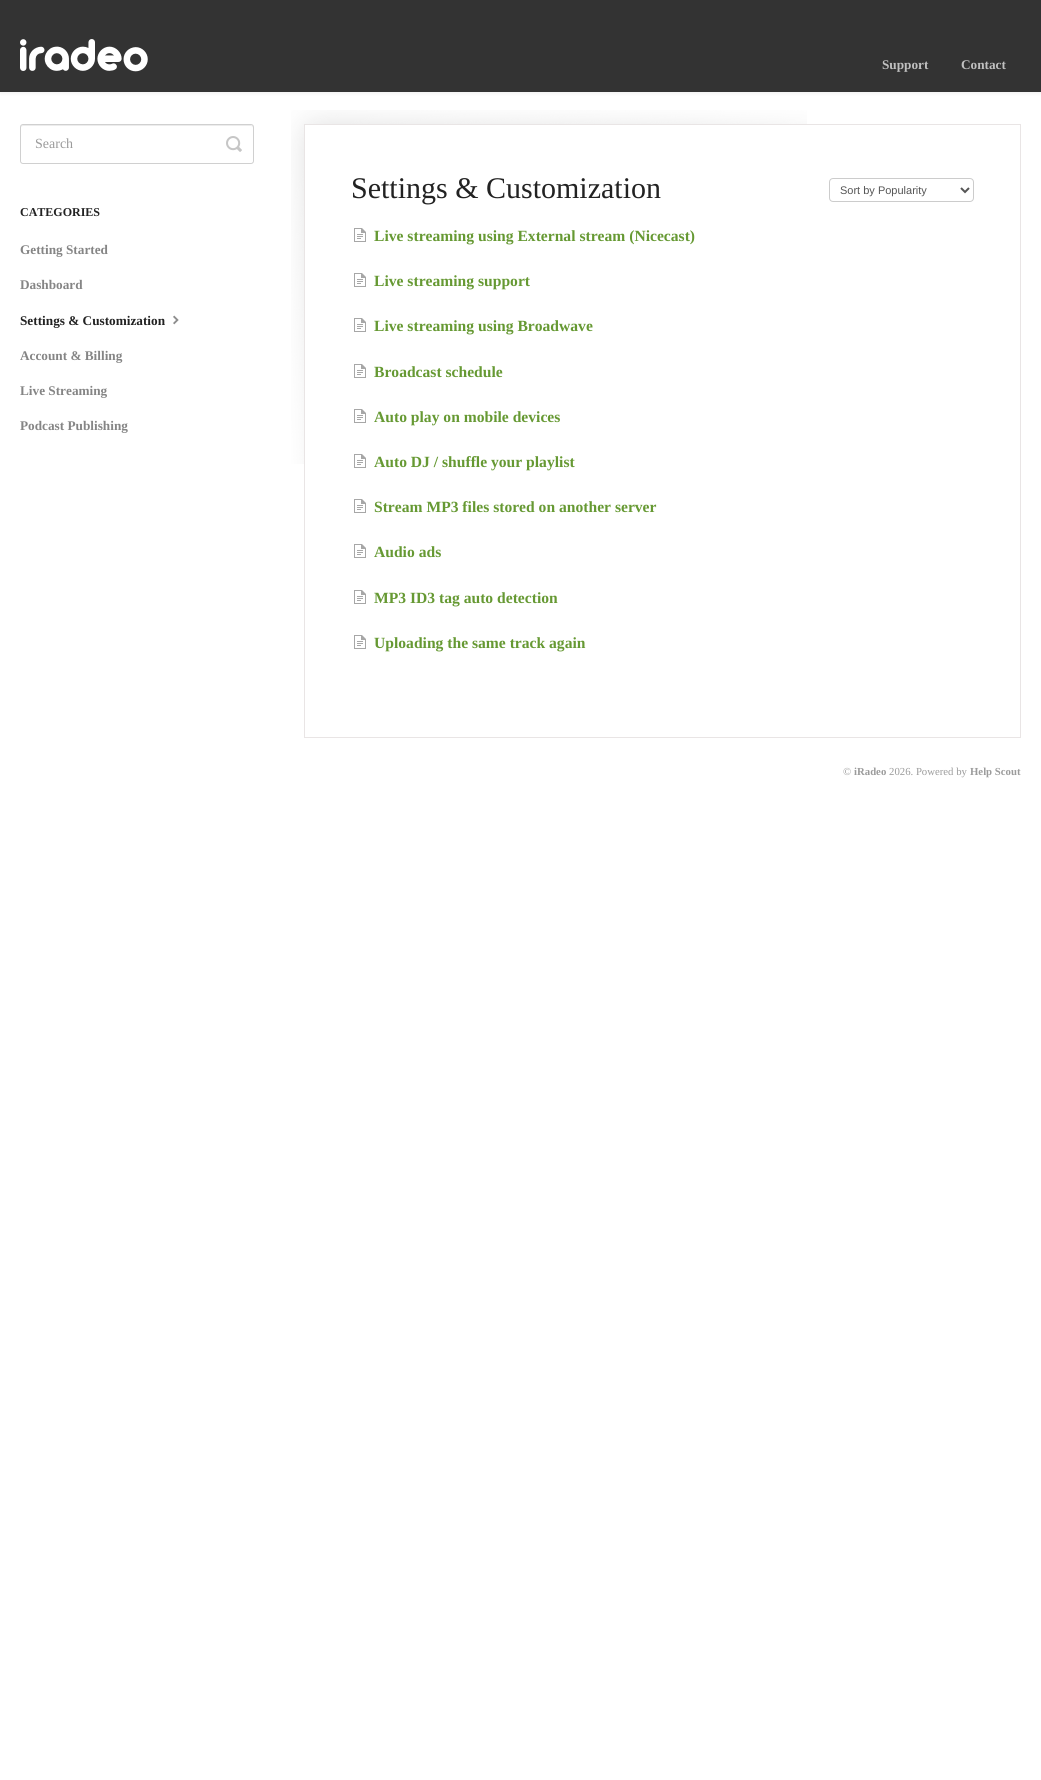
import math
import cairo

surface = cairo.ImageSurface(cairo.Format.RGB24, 1041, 1780)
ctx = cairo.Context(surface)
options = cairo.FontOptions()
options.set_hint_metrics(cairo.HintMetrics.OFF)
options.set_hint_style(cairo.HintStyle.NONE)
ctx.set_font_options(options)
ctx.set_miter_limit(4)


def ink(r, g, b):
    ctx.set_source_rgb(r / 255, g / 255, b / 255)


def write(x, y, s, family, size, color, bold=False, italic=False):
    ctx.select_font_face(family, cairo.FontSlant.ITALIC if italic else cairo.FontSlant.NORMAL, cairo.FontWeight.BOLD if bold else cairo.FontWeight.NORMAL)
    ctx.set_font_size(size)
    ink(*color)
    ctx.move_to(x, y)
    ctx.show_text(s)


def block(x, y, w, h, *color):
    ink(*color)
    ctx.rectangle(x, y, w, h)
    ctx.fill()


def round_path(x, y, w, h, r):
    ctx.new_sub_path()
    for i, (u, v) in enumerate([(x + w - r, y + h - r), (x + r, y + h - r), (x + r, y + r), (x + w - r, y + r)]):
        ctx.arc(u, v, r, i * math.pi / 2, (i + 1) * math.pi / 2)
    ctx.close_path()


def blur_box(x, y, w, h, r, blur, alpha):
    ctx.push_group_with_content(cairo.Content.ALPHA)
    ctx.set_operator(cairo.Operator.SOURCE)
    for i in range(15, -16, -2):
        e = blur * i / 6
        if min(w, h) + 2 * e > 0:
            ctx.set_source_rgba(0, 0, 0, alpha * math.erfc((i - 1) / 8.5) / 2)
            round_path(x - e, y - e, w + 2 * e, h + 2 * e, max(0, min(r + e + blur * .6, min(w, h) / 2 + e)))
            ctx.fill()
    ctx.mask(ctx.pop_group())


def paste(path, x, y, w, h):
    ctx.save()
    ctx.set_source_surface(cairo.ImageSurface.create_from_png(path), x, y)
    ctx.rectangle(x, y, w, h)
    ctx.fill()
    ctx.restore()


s1 = dict(family="Liberation Serif", size=13.25, color=(192, 192, 192), bold=True)
s2 = dict(family="Liberation Serif", size=14, color=(155, 155, 155))
s3 = dict(family="Liberation Serif", size=12, color=(34, 34, 34), bold=True)
s4 = dict(family="Liberation Serif", size=13.25, color=(133, 133, 133), bold=True)
s5 = dict(family="Liberation Serif", size=13.25, color=(34, 34, 34), bold=True)
s6 = dict(family="Liberation Serif", size=30, color=(34, 34, 34))
s7 = dict(family="Liberation Sans", size=11, color=(85, 85, 85))
s8 = dict(family="Liberation Serif", size=15.6, color=(102, 153, 51), bold=True)
s9 = dict(family="Liberation Serif", size=10.75, color=(155, 155, 155))
s10 = dict(family="Liberation Serif", size=10.75, color=(155, 155, 155), bold=True)

ink(255, 255, 255)
ctx.paint()
ink(0, 0, 0)
blur_box(0, 1, 1041, 92, 0, 2, 0.07)
block(0, 0, 1041, 92, 51, 51, 51)
paste("pic1.png", 20, 39, 128, 33)
write(882, 69, "Support", **s1)
write(961, 69, "Contact", **s1)
ink(236, 236, 236)
ctx.new_path()
ctx.move_to(23, 126)
ctx.line_to(251, 126)
ctx.curve_to(252, 126, 253, 127, 253, 128)
ctx.line_to(253, 126)
ctx.line_to(251, 125)
ctx.line_to(23, 125)
ctx.curve_to(21, 125, 21, 127, 21, 128)
ctx.curve_to(21, 127, 22, 126, 23, 126)
ctx.close_path()
ctx.fill()
round_path(20.5, 124.5, 233, 39, 2.5)
ink(208, 208, 208)
ctx.set_line_width(1)
ctx.stroke()
write(35, 148, "Search", **s2)
paste("pic2.png", 226, 136, 16, 16)
write(20, 216, "CATEGORIES", **s3)
write(20, 254, "Getting Started", **s4)
write(20, 289, "Dashboard", **s4)
write(20, 325, "Settings & Customization", **s5)
paste("pic3.png", 173, 315, 6, 10)
write(20, 360, "Account & Billing", **s4)
write(20, 395, "Live Streaming", **s4)
write(20, 430, "Podcast Publishing", **s4)
paste("pic4.png", 291, 110, 516, 354)
ctx.rectangle(304.5, 124.5, 716, 613)
ink(233, 229, 229)
ctx.stroke()
write(351, 198, "Settings & Customization", **s6)
round_path(829.5, 178.5, 144, 23, 3.5)
ink(204, 204, 204)
ctx.stroke()
ctx.new_path()
ctx.move_to(961, 188)
ctx.line_to(965, 192)
ctx.line_to(969, 188)
ink(85, 85, 85)
ctx.set_line_width(2)
ctx.stroke()
write(840, 194, "Sort by Popularity", **s7)
paste("pic5.png", 354, 228, 12, 14)
write(374, 241, "Live streaming using External stream (Nicecast)", **s8)
paste("pic5.png", 354, 273, 12, 14)
write(374, 286, "Live streaming support", **s8)
paste("pic5.png", 354, 318, 12, 14)
write(374, 331, "Live streaming using Broadwave", **s8)
paste("pic5.png", 354, 364, 12, 14)
write(374, 377, "Broadcast schedule", **s8)
paste("pic5.png", 354, 409, 12, 14)
write(374, 422, "Auto play on mobile devices", **s8)
paste("pic5.png", 354, 454, 12, 14)
write(374, 467, "Auto DJ / shuffle your playlist", **s8)
paste("pic5.png", 354, 499, 12, 14)
write(374, 512, "Stream MP3 files stored on another server", **s8)
paste("pic5.png", 354, 544, 12, 14)
write(374, 557, "Audio ads", **s8)
paste("pic5.png", 354, 590, 12, 14)
write(374, 603, "MP3 ID3 tag auto detection", **s8)
paste("pic5.png", 354, 635, 12, 14)
write(374, 648, "Uploading the same track again", **s8)
write(843, 775, "©", **s9)
write(854, 775, "iRadeo", **s10)
write(889, 775, "2026. Powered by", **s9)
write(970, 775, "Help Scout", **s10)
surface.write_to_png("screenshot.png")
